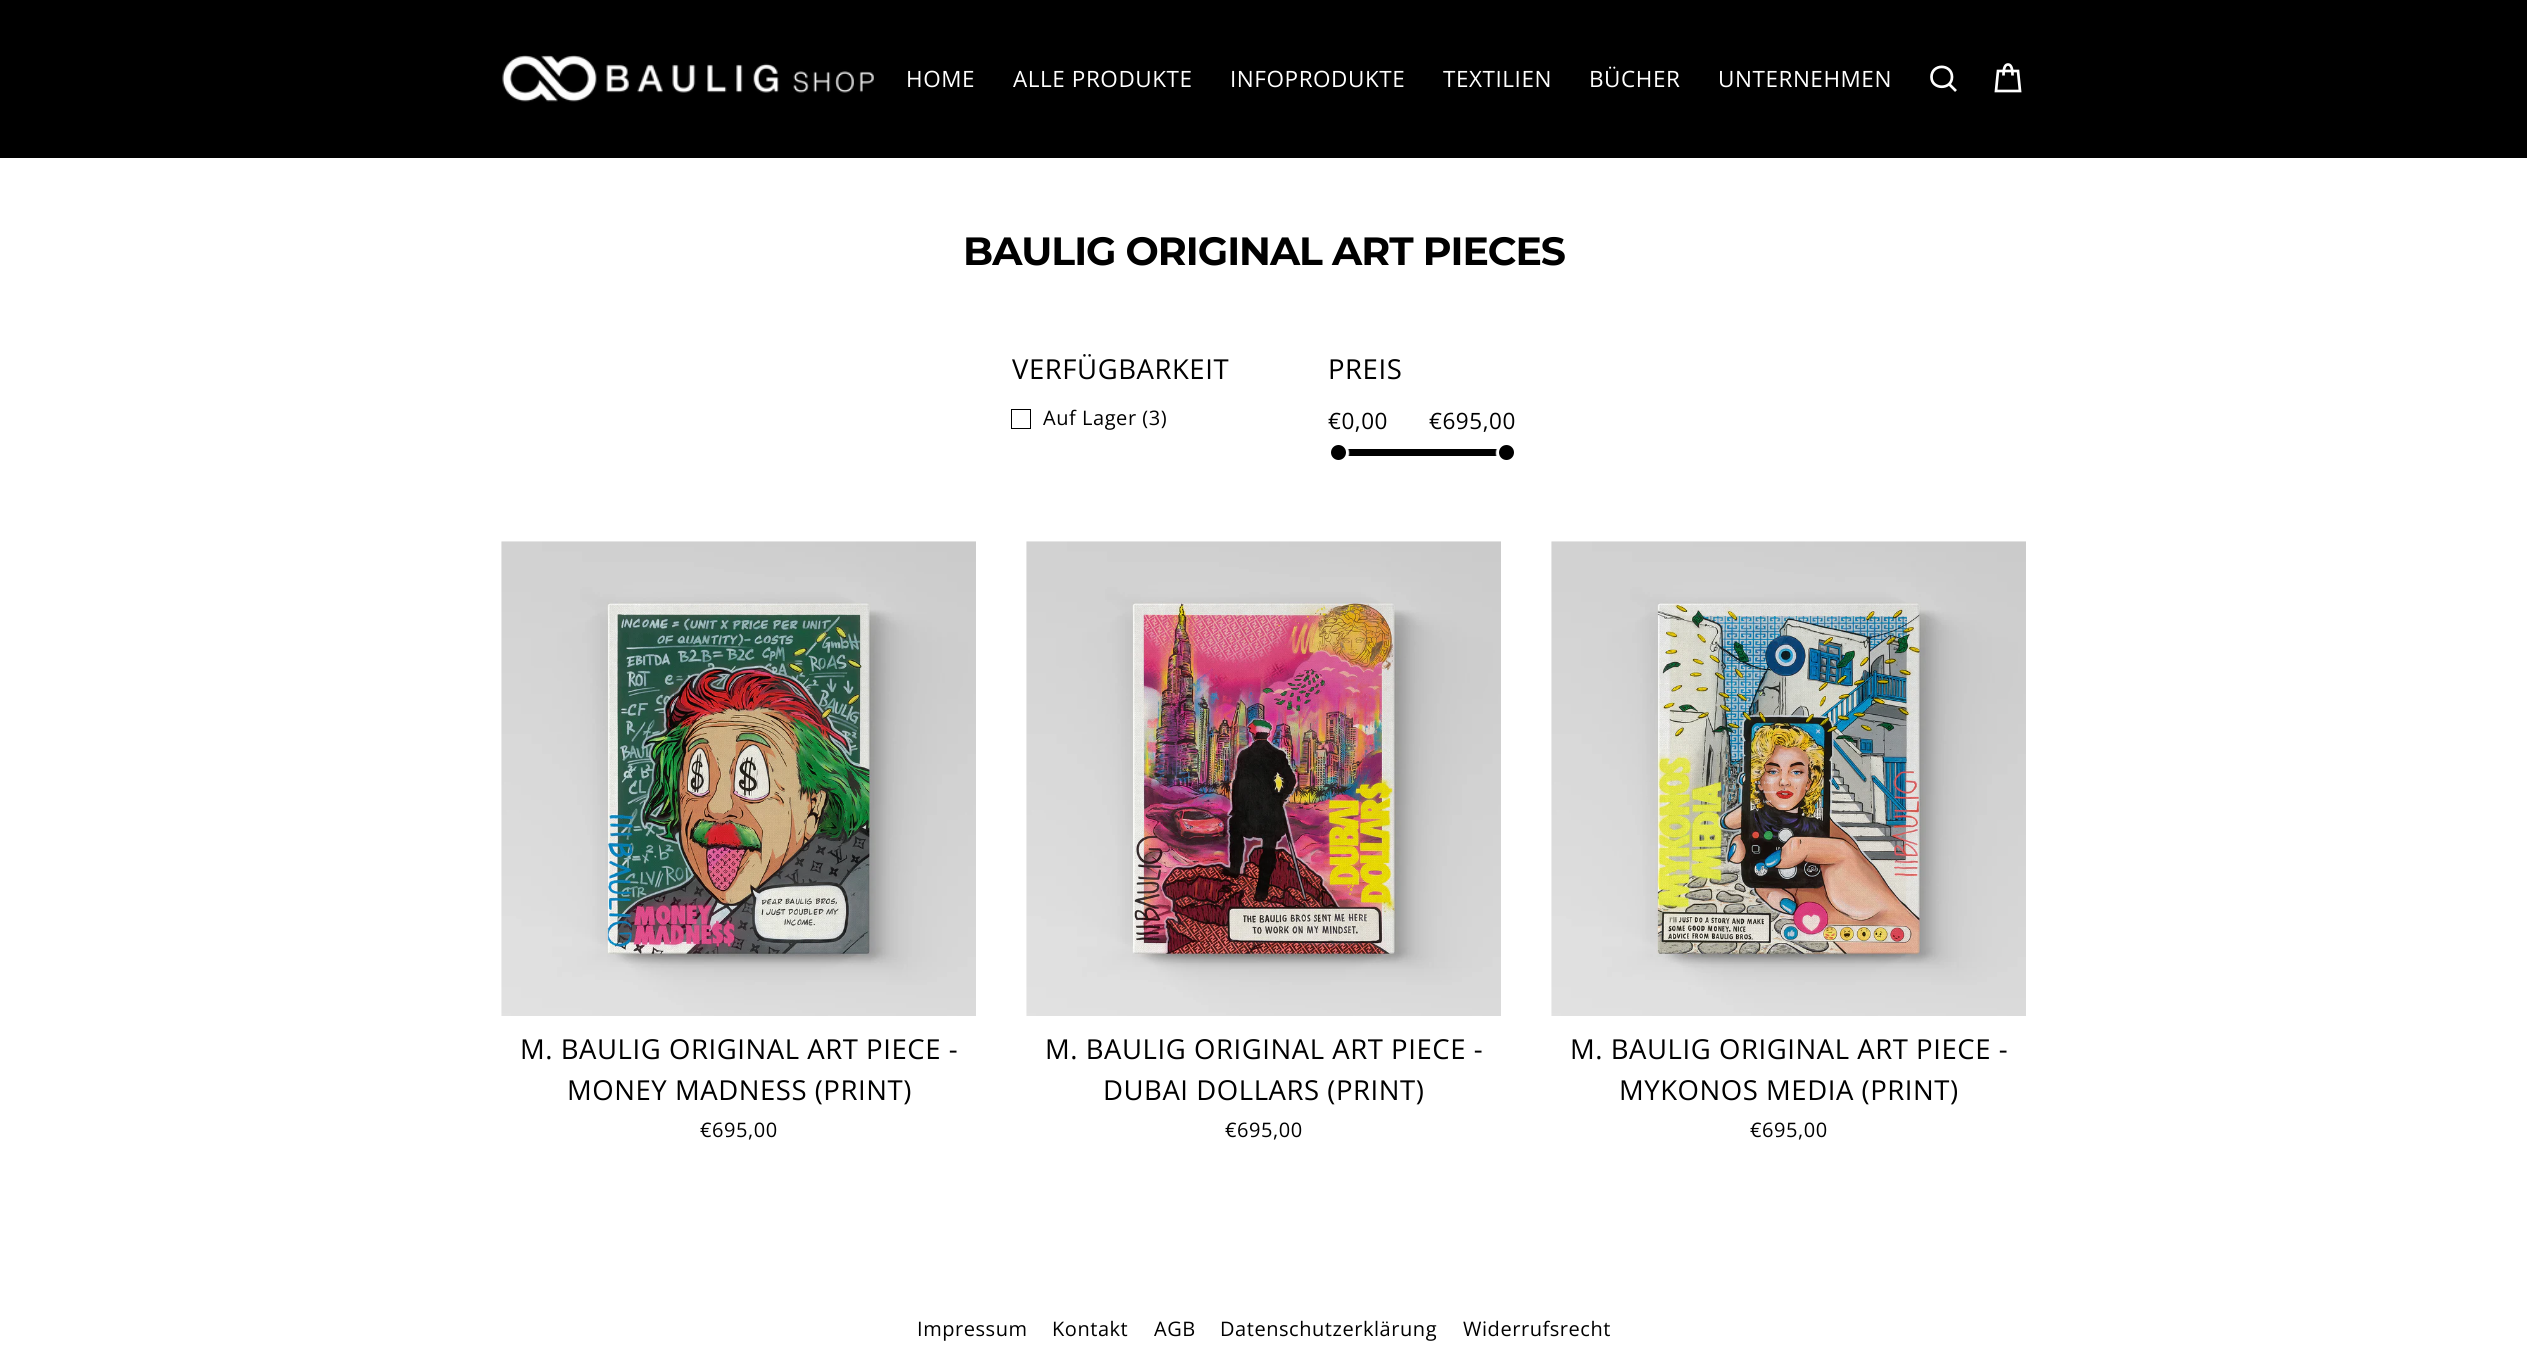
import math
import cairo

surface = cairo.ImageSurface(cairo.Format.RGB24, 2527, 1354)
ctx = cairo.Context(surface)
options = cairo.FontOptions()
options.set_hint_metrics(cairo.HintMetrics.OFF)
options.set_hint_style(cairo.HintStyle.NONE)
ctx.set_font_options(options)
ctx.set_miter_limit(4)


def ink(r, g, b):
    ctx.set_source_rgb(r / 255, g / 255, b / 255)


def write_spaced(x, y, s, letter, word):
    ctx.move_to(x, y)
    for ch in s:
        ctx.show_text(ch)
        ctx.rel_move_to(letter + word * (ch == ' '), 0)


def block(x, y, w, h, *color):
    ink(*color)
    ctx.rectangle(x, y, w, h)
    ctx.fill()


def round_path(x, y, w, h, r):
    ctx.new_sub_path()
    for i, (u, v) in enumerate([(x + w - r, y + h - r), (x + r, y + h - r), (x + r, y + r), (x + w - r, y + r)]):
        ctx.arc(u, v, r, i * math.pi / 2, (i + 1) * math.pi / 2)
    ctx.close_path()


def blur_box(x, y, w, h, r, blur, alpha):
    ctx.push_group_with_content(cairo.Content.ALPHA)
    ctx.set_operator(cairo.Operator.SOURCE)
    for i in range(15, -16, -2):
        e = blur * i / 6
        if min(w, h) + 2 * e > 0:
            ctx.set_source_rgba(0, 0, 0, alpha * math.erfc((i - 1) / 8.5) / 2)
            round_path(x - e, y - e, w + 2 * e, h + 2 * e, max(0, min(r + e + blur * .6, min(w, h) / 2 + e)))
            ctx.fill()
    ctx.mask(ctx.pop_group())


def paste(path, x, y, w, h):
    ctx.save()
    ctx.set_source_surface(cairo.ImageSurface.create_from_png(path), x, y)
    ctx.rectangle(x, y, w, h)
    ctx.fill()
    ctx.restore()


ink(255, 255, 255)
ctx.paint()
block(0, 0, 2527, 158, 0, 0, 0)
paste("pic1.png", 502, 55, 372, 47)
ctx.select_font_face("Open Sans")
ctx.set_font_size(22.5)
ink(255, 255, 255)
write_spaced(906, 87, "HOME", 0.55, 0)
write_spaced(1013, 87, "ALLE PRODUKTE", 0.55, 0)
write_spaced(1230, 87, "INFOPRODUKTE", 0.55, 0)
write_spaced(1443, 87, "TEXTILIEN", 0.55, 0)
write_spaced(1589, 87, "BÜCHER", 0.55, 0)
write_spaced(1718, 87, "UNTERNEHMEN", 0.55, 0)
ctx.new_path()
ctx.move_to(1952, 77)
ctx.curve_to(1952, 90, 1931.5, 90, 1931.5, 77)
ctx.curve_to(1931.5, 63.5, 1952, 63.5, 1952, 77)
ctx.close_path()
ctx.move_to(1956, 91)
ctx.line_to(1949, 84)
ctx.set_line_width(2.7)
ctx.stroke()
ctx.new_path()
ctx.move_to(2003.5, 75.5)
ctx.curve_to(2003.5, 67, 2005.5, 64.5, 2008, 64.5)
ctx.curve_to(2010.5, 64.5, 2012.5, 67, 2012.5, 75.5)
ctx.move_to(1998, 71)
ctx.line_to(2018, 71)
ctx.line_to(2020, 91)
ctx.line_to(1996, 91)
ctx.close_path()
ctx.stroke()
ctx.select_font_face("Montserrat", cairo.FontSlant.NORMAL, cairo.FontWeight.BOLD)
ctx.set_font_size(39.4)
ink(0, 0, 0)
write_spaced(963, 265, "BAULIG ORIGINAL ART PIECES", -1, 0)
ctx.select_font_face("Open Sans")
ctx.set_font_size(27.5)
write_spaced(1012, 379, "VERFÜGBARKEIT", 0.55, 0)
ctx.rectangle(1011.5, 409.5, 19, 19)
ctx.set_line_width(1)
ctx.stroke()
ctx.set_font_size(20)
write_spaced(1043, 425, "Auf Lager (3)", 0.55, 0)
ctx.set_font_size(27.5)
write_spaced(1328, 379, "PREIS", 0.55, 0)
ctx.set_font_size(22.5)
write_spaced(1328, 429, "€0,00", 0.55, 0)
write_spaced(1429, 429, "€695,00", 0.55, 0)
block(1339, 449, 167, 7, 0, 0, 0)
ink(255, 255, 255)
blur_box(1329, 443, 20, 20, 10, 0.5, 1)
ink(0, 0, 0)
ctx.arc(1338.5, 452.5, 7.5, 0, 2 * math.pi)
ctx.fill()
ink(255, 255, 255)
blur_box(1496, 443, 20, 20, 10, 0.5, 1)
ink(0, 0, 0)
ctx.arc(1506.5, 452.5, 7.5, 0, 2 * math.pi)
ctx.fill()
paste("pic2.png", 501, 541, 475, 475)
ctx.set_font_size(27.5)
write_spaced(520, 1059, "M. BAULIG ORIGINAL ART PIECE -", 0.55, 0)
write_spaced(567, 1100, "MONEY MADNESS (PRINT)", 0.55, 0)
ctx.set_font_size(20)
write_spaced(700, 1137, "€695,00", 0.55, 0)
paste("pic3.png", 1026, 541, 475, 475)
ctx.set_font_size(27.5)
write_spaced(1045, 1059, "M. BAULIG ORIGINAL ART PIECE -", 0.55, 0)
write_spaced(1103, 1100, "DUBAI DOLLARS (PRINT)", 0.55, 0)
ctx.set_font_size(20)
write_spaced(1225, 1137, "€695,00", 0.55, 0)
paste("pic4.png", 1551, 541, 475, 475)
ctx.set_font_size(27.5)
write_spaced(1570, 1059, "M. BAULIG ORIGINAL ART PIECE -", 0.55, 0)
write_spaced(1619, 1100, "MYKONOS MEDIA (PRINT)", 0.55, 0)
ctx.set_font_size(20)
write_spaced(1750, 1137, "€695,00", 0.55, 0)
write_spaced(917, 1336, "Impressum", 0.55, 0)
write_spaced(1052, 1336, "Kontakt", 0.55, 0)
write_spaced(1154, 1336, "AGB", 0.55, 0)
write_spaced(1220, 1336, "Datenschutzerklärung", 0.55, 0)
write_spaced(1463, 1336, "Widerrufsrecht", 0.55, 0)
surface.write_to_png("screenshot.png")
